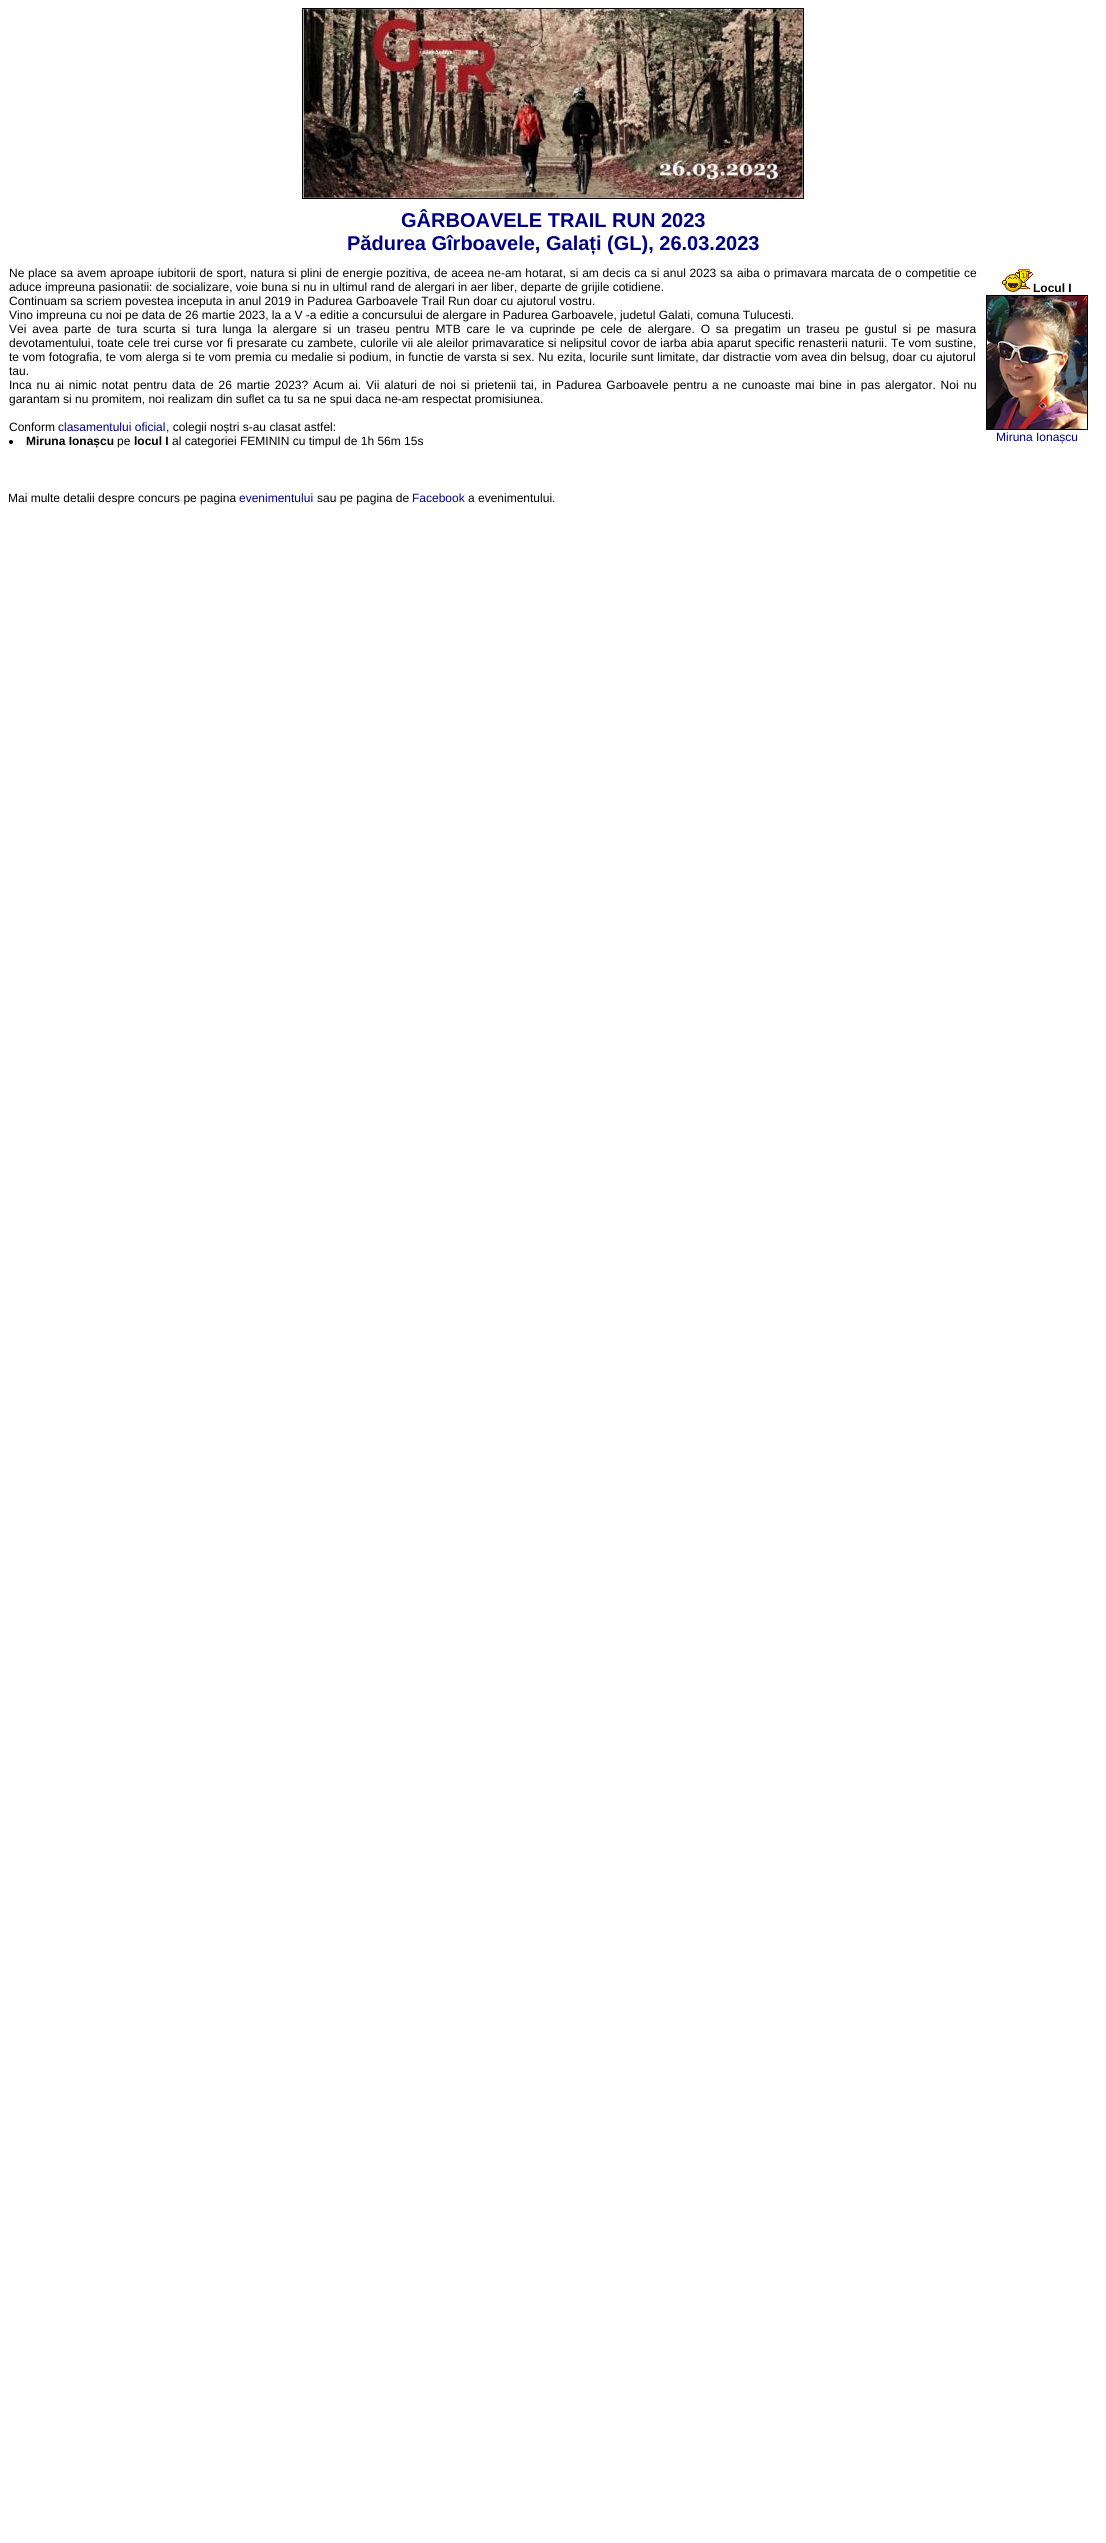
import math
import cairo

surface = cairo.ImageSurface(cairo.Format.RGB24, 1106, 2543)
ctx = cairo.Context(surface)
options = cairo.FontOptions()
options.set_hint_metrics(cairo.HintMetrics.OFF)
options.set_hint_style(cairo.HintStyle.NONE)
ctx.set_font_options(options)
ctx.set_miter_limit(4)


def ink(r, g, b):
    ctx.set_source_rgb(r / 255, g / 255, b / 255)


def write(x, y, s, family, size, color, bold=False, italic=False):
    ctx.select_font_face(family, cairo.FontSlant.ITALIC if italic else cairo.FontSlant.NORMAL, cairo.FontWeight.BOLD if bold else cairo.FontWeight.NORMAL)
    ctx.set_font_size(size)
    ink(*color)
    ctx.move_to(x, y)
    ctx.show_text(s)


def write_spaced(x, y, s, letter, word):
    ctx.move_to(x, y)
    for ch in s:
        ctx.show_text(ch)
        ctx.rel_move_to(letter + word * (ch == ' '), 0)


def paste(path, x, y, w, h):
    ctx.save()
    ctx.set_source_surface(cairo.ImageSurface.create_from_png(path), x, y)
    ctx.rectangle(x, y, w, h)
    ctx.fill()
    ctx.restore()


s1 = dict(family="Liberation Sans", size=20, color=(0, 0, 128), bold=True)
s2 = dict(family="Liberation Sans", size=12, color=(0, 0, 0))
s3 = dict(family="Liberation Sans", size=12, color=(0, 0, 128))
s4 = dict(family="Liberation Sans", size=12, color=(0, 0, 0), bold=True)

ink(255, 255, 255)
ctx.paint()
ctx.rectangle(302.5, 8.5, 501, 190)
ink(0, 0, 0)
ctx.set_line_width(1)
ctx.stroke()
paste("pic1.png", 303, 9, 500, 189)
write(401, 227, "GÂRBOAVELE TRAIL RUN 2023", **s1)
write(347, 250, "Pădurea Gîrboavele, Galați (GL), 26.03.2023", **s1)
ctx.select_font_face("Liberation Sans")
ctx.set_font_size(12)
ink(0, 0, 0)
write_spaced(9, 277, "Ne place sa avem aproape iubitorii de sport, natura si plini de energie pozitiva, de aceea ne-am hotarat, si am decis ca si anul 2023 sa", 0, 0.4)
write_spaced(737, 277, "aiba o primavara marcata de o competitie ce", 0, 0.4)
write(9, 291, "aduce impreuna pasionatii: de socializare, voie buna si nu in ultimul rand de alergari in aer liber, departe de grijile cotidiene.", **s2)
write(9, 305, "Continuam sa scriem povestea inceputa in anul 2019 in Padurea Garboavele Trail Run doar cu ajutorul vostru.", **s2)
write(9, 319, "Vino impreuna cu noi pe data de 26 martie 2023, la a V -a editie a concursului de alergare in Padurea Garboavele, judetul Galati, comuna Tulucesti.", **s2)
write_spaced(9, 333, "Vei avea parte de tura scurta si tura lunga la alergare si un traseu pentru MTB care le va cuprinde pe cele de alergare. O sa pregatim", 0, 2.5)
write_spaced(787, 333, "un traseu pe gustul si pe masura", 0, 2.5)
write_spaced(9, 347, "devotamentului, toate cele trei curse vor fi presarate cu zambete, culorile vii ale aleilor primavaratice si nelipsitul covor de iarba abia aparut specific renasterii naturii. Te vom sustine,", 0, 0.3)
write_spaced(9, 361, "te vom fotografia, te vom alerga si te vom premia cu medalie si podium, in functie de varsta si sex. Nu ezita, locurile sunt limitate, dar distractie vom avea din belsug, doar cu ajutorul", 0, 0.25)
write(9, 375, "tau.", **s2)
write_spaced(9, 389, "Inca nu ai nimic notat pentru data de 26 martie 2023? Acum ai. Vii alaturi de noi si prietenii tai, in Padurea Garboavele pentru a ne cunoaste", 0, 1.5)
write_spaced(795, 389, "mai bine in pas alergator. Noi nu", 0, 1.5)
write(9, 403, "garantam si nu promitem, noi realizam din suflet ca tu sa ne spui daca ne-am respectat promisiunea.", **s2)
write(9, 431, "Conform", **s2)
write(58, 431, "clasamentului oficial", **s3)
write(166, 431, ", colegii noștri s-au clasat astfel:", **s2)
ctx.new_path()
ctx.arc(11, 442, 2, 0, 2 * math.pi)
ctx.fill()
write(26, 445, "Miruna Ionașcu", **s4)
write(117, 445, "pe", **s2)
write(134, 445, "locul I", **s4)
write(172, 445, "al categoriei FEMININ cu timpul de 1h 56m 15s", **s2)
paste("pic2.png", 1002, 269, 31, 23)
write(1033, 292, "Locul I", **s4)
ctx.rectangle(986.5, 295.5, 101, 134)
ctx.stroke()
paste("pic3.png", 987, 296, 100, 133)
write(996, 441, "Miruna Ionașcu", **s3)
write(8, 502, "Mai multe detalii despre concurs pe pagina", **s2)
write(239, 502, "evenimentului", **s3)
write(317, 502, "sau pe pagina de", **s2)
write(412, 502, "Facebook", **s3)
write(468, 502, "a evenimentului.", **s2)
surface.write_to_png("screenshot.png")
